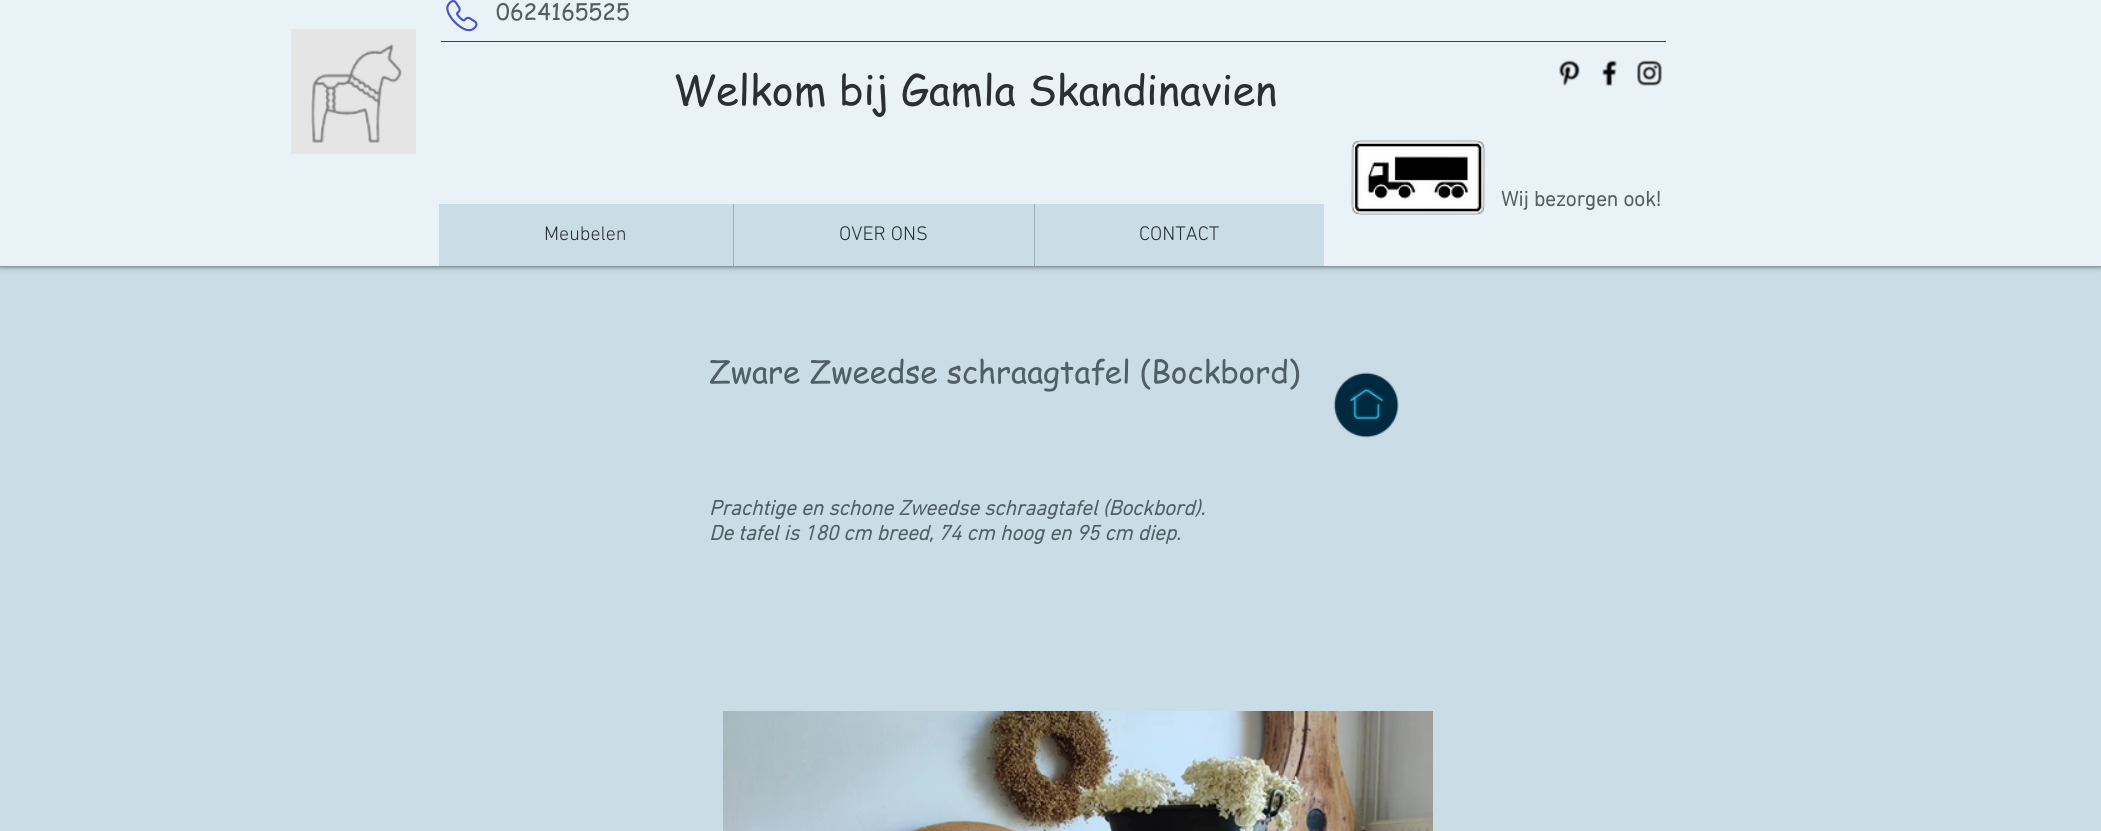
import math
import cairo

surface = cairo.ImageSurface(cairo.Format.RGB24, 2101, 831)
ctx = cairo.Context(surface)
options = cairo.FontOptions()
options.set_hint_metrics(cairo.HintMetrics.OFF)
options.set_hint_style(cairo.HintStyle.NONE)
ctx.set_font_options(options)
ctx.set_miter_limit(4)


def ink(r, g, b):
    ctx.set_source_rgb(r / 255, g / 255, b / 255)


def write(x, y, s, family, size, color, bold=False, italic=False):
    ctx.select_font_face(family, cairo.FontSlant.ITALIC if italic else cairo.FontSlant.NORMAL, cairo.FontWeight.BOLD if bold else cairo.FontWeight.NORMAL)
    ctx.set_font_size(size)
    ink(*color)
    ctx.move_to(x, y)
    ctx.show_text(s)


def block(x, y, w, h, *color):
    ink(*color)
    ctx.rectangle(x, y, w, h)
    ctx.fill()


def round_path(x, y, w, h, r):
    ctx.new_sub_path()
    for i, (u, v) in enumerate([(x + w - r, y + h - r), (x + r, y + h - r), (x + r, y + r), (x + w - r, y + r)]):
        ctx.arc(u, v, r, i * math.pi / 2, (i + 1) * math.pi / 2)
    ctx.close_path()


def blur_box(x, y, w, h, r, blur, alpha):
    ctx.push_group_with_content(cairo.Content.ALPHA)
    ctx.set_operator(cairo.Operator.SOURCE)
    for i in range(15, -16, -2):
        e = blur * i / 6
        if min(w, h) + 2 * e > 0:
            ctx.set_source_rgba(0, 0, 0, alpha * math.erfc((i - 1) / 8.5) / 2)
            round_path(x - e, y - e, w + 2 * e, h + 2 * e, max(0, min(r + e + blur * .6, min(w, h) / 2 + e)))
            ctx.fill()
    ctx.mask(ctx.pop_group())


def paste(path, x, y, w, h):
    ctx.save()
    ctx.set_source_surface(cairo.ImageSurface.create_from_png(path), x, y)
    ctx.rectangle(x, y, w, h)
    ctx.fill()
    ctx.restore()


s1 = dict(family="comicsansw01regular", size=22.5, color=(81, 94, 101))
s2 = dict(family="comicsansw01regular", size=41.25, color=(41, 47, 51))
s3 = dict(family="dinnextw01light", size=21.25, color=(81, 94, 101), bold=True)
s4 = dict(family="dinnextw01light Light", size=20, color=(41, 47, 51))
s5 = dict(family="comicsansw01regular", size=31.25, color=(81, 94, 101))
s6 = dict(family="dinnextw01light", size=21.25, color=(81, 94, 101), bold=True, italic=True)

ink(202, 221, 230)
ctx.paint()
ink(0, 0, 0)
blur_box(0, 0, 2101, 266, 0, 3, 0.7)
block(0, 0, 2101, 266, 233, 242, 246)
paste("pic1.png", 446, 0, 32, 32)
write(496, 20, "0624165525", **s1)
paste("pic2.png", 291, 29, 125, 125)
block(441, 41, 1225, 1, 66, 66, 66)
write(673, 105, "Welkom bij Gamla Skandinavien", **s2)
paste("pic3.png", 1559, 60, 21, 26)
paste("pic4.png", 1602, 60, 15, 26)
paste("pic5.png", 1637, 60, 25, 26)
paste("pic6.png", 1351, 140, 134, 75)
write(1501, 206, "Wij bezorgen ook!", **s3)
block(439, 204, 885, 62, 202, 221, 230)
write(544, 240, "Meubelen", **s4)
block(733, 204, 1, 62, 154, 174, 184)
write(839, 240, "OVER ONS", **s4)
block(1034, 204, 1, 62, 154, 174, 184)
write(1139, 240, "CONTACT", **s4)
write(709, 383, "Zware Zweedse schraagtafel (Bockbord)", **s5)
paste("pic7.png", 1333, 372, 66, 66)
write(709, 515, "Prachtige en schone Zweedse schraagtafel (Bockbord).", **s6)
write(709, 540, "De tafel is 180 cm breed, 74 cm hoog en 95 cm diep.", **s6)
paste("pic8.png", 723, 711, 710, 120)
surface.write_to_png("screenshot.png")
